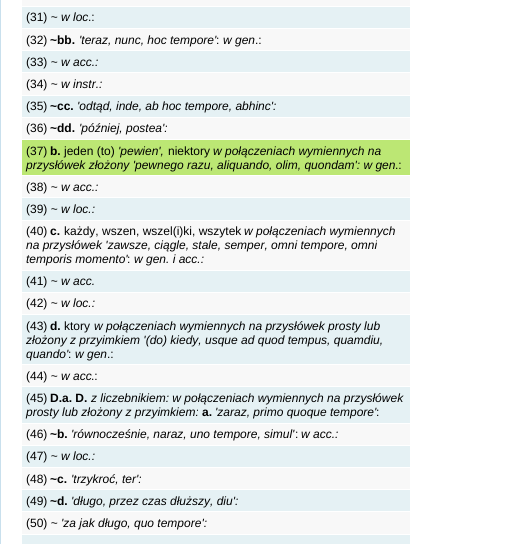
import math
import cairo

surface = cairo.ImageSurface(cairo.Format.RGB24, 518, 544)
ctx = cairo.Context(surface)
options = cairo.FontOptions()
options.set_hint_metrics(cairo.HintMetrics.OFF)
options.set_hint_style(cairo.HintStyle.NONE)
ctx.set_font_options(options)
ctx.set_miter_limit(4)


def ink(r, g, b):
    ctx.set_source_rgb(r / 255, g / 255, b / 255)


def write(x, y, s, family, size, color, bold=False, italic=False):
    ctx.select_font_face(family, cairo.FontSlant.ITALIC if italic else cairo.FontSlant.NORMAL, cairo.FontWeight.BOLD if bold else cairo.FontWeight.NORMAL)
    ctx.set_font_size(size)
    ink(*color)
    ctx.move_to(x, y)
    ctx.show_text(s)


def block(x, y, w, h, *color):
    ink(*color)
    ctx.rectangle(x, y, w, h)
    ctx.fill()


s1 = dict(family="Liberation Sans", size=12, color=(0, 0, 0))
s2 = dict(family="Liberation Sans", size=12, color=(0, 0, 0), italic=True)
s3 = dict(family="Liberation Sans", size=12, color=(0, 0, 0), bold=True)

ink(255, 255, 255)
ctx.paint()
ctx.rectangle(0.5, -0.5, 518, 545)
ink(201, 224, 237)
ctx.set_line_width(1)
ctx.stroke()
block(22, 0, 389, 6, 248, 248, 248)
block(410, 0, 1, 7, 255, 255, 255)
block(22, 7, 388, 21, 229, 241, 244)
write(26, 21, "(31) ~", **s1)
write(61, 21, "w loc", **s2)
write(88, 21, ".:", **s1)
block(22, 29, 388, 21, 248, 248, 248)
write(26, 44, "(32)", **s1)
write(50, 44, "~bb.", **s3)
write(79, 44, "'teraz, nunc, hoc tempore'", **s2)
write(216, 44, ":", **s1)
write(223, 44, "w gen", **s2)
write(255, 44, ".:", **s1)
block(22, 51, 388, 21, 229, 241, 244)
write(26, 66, "(33) ~", **s1)
write(61, 66, "w acc.:", **s2)
block(22, 73, 388, 22, 248, 248, 248)
write(26, 88, "(34) ~", **s1)
write(61, 88, "w instr.:", **s2)
block(22, 96, 388, 21, 229, 241, 244)
write(26, 110, "(35)", **s1)
write(50, 110, "~cc.", **s3)
write(77, 110, "'odtąd, inde, ab hoc tempore, abhinc':", **s2)
block(22, 118, 388, 21, 248, 248, 248)
write(26, 132, "(36)", **s1)
write(50, 132, "~dd.", **s3)
write(79, 132, "'później, postea':", **s2)
block(22, 140, 388, 35, 188, 231, 116)
write(26, 155, "(37)", **s1)
write(50, 155, "b.", **s3)
write(64, 155, "jeden (to)", **s1)
write(118, 155, "'pewien',", **s2)
write(168, 155, "niektory", **s1)
write(213, 155, "w połączeniach wymiennych na", **s2)
write(26, 169, "przysłówek złożony 'pewnego razu, aliquando, olim, quondam': w gen", **s2)
write(395, 169, ".:", **s1)
block(22, 176, 388, 21, 248, 248, 248)
write(26, 191, "(38) ~", **s1)
write(61, 191, "w acc.:", **s2)
block(22, 198, 388, 22, 229, 241, 244)
write(26, 213, "(39) ~", **s1)
write(61, 213, "w loc.:", **s2)
block(22, 221, 388, 49, 248, 248, 248)
write(26, 235, "(40)", **s1)
write(50, 235, "c.", **s3)
write(64, 235, "każdy, wszen, wszel(i)ki, wszytek", **s1)
write(244, 235, "w połączeniach wymiennych", **s2)
write(26, 249, "na przysłówek 'zawsze, ciągle, stale, semper, omni tempore, omni", **s2)
write(26, 263, "temporis momento'", **s2)
write(127, 263, ":", **s1)
write(134, 263, "w gen. i acc.:", **s2)
block(22, 271, 388, 21, 229, 241, 244)
write(26, 285, "(41) ~", **s1)
write(61, 285, "w acc.", **s2)
block(22, 293, 388, 21, 248, 248, 248)
write(26, 307, "(42) ~", **s1)
write(61, 307, "w loc.:", **s2)
block(22, 315, 388, 49, 229, 241, 244)
write(26, 330, "(43)", **s1)
write(50, 330, "d.", **s3)
write(64, 330, "ktory", **s1)
write(94, 330, "w połączeniach wymiennych na przysłówek prosty lub", **s2)
write(26, 344, "złożony z przyimkiem '(do) kiedy, usque ad quod tempus, quamdiu,", **s2)
write(26, 358, "quando'", **s2)
write(68, 358, ":", **s1)
write(75, 358, "w gen", **s2)
write(107, 358, ".:", **s1)
block(22, 365, 388, 21, 248, 248, 248)
write(26, 380, "(44) ~", **s1)
write(61, 380, "w acc", **s2)
write(91, 380, ".:", **s1)
block(22, 387, 388, 36, 229, 241, 244)
write(26, 402, "(45)", **s1)
write(50, 402, "D.a. D.", **s3)
write(91, 402, "z liczebnikiem: w połączeniach wymiennych na przysłówek", **s2)
write(26, 416, "prosty lub złożony z przyimkiem:", **s2)
write(202, 416, "a.", **s3)
write(215, 416, "'zaraz, primo quoque tempore'", **s2)
write(376, 416, ":", **s1)
block(22, 424, 388, 21, 248, 248, 248)
write(26, 438, "(46)", **s1)
write(50, 438, "~b.", **s3)
write(71, 438, "'równocześnie, naraz, uno tempore, simul'", **s2)
write(295, 438, ":", **s1)
write(301, 438, "w acc.:", **s2)
block(22, 446, 388, 21, 229, 241, 244)
write(26, 460, "(47) ~", **s1)
write(61, 460, "w loc.:", **s2)
block(22, 468, 388, 21, 248, 248, 248)
write(26, 483, "(48)", **s1)
write(50, 483, "~c.", **s3)
write(71, 483, "'trzykroć, ter':", **s2)
block(22, 490, 388, 21, 229, 241, 244)
write(26, 505, "(49)", **s1)
write(50, 505, "~d.", **s3)
write(71, 505, "'długo, przez czas dłuższy, diu':", **s2)
block(22, 512, 388, 22, 248, 248, 248)
write(26, 527, "(50) ~", **s1)
write(61, 527, "'za jak długo, quo tempore':", **s2)
block(22, 535, 388, 9, 229, 241, 244)
surface.write_to_png("screenshot.png")
